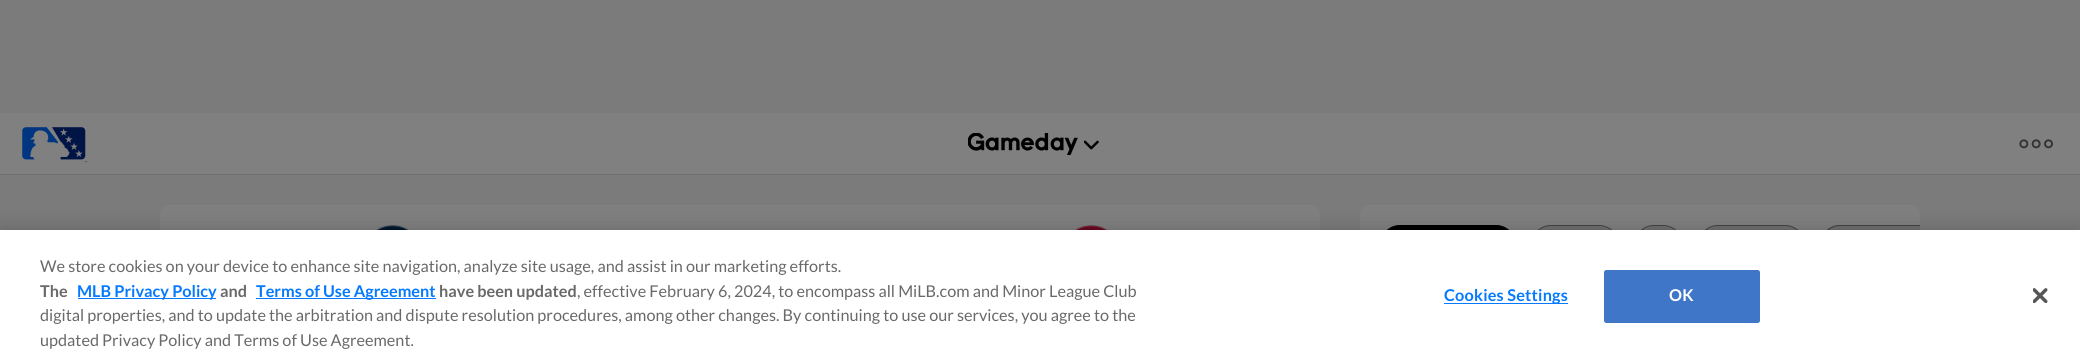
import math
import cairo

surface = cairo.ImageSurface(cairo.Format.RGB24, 2080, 364)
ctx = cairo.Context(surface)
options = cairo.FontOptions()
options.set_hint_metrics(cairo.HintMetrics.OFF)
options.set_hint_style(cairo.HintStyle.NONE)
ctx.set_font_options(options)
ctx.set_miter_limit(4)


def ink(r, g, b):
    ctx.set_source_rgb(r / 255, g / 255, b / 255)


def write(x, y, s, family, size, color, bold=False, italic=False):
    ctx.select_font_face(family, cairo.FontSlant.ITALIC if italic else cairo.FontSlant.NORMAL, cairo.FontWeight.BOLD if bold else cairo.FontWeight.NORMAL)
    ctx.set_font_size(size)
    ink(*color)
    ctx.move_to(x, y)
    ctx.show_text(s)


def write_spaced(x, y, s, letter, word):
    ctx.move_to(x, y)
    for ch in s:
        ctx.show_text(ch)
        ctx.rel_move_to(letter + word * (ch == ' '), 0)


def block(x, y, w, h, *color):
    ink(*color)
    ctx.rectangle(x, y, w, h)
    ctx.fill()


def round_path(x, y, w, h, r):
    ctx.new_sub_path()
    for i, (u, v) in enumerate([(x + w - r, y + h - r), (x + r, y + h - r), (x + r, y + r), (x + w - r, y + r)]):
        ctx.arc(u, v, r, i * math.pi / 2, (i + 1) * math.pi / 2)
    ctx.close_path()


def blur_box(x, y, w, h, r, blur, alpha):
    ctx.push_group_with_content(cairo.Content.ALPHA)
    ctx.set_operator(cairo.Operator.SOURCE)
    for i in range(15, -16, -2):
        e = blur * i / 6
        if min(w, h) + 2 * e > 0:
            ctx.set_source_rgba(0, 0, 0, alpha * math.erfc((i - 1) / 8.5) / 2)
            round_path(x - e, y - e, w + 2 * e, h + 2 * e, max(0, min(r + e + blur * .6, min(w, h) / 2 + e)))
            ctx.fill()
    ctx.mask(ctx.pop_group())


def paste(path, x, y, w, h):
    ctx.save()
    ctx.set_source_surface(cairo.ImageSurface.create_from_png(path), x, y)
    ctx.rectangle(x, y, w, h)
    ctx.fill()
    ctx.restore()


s1 = dict(family="Lato", size=16.25, color=(105, 105, 105))
s2 = dict(family="Lato", size=16.25, color=(105, 105, 105), bold=True)
s3 = dict(family="Lato", size=16.25, color=(5, 122, 255), bold=True)

ink(123, 123, 123)
ctx.paint()
block(0, 113, 2080, 61, 128, 128, 128)
block(0, 174, 2080, 1, 111, 111, 111)
paste("pic1.png", 22, 127, 65, 36)
paste("pic2.png", 968, 133, 110, 22)
paste("pic3.png", 1084, 140, 15, 10)
paste("pic4.png", 2019, 139, 34, 10)
ink(128, 128, 128)
round_path(160, 205, 1160, 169, 10)
ctx.fill()
paste("pic5.png", 376, 225, 33, 5)
paste("pic6.png", 1075, 225, 33, 5)
ctx.new_path()
ctx.move_to(1370, 205)
ctx.line_to(1910, 205)
ctx.curve_to(1915.5, 205, 1920, 209.5, 1920, 215)
ctx.line_to(1920, 283)
ctx.line_to(1360, 283)
ctx.line_to(1360, 215)
ctx.curve_to(1360, 209.5, 1364.5, 205, 1370, 205)
ctx.close_path()
ctx.fill()
ink(0, 0, 0)
round_path(1380.5, 225.5, 135, 39, 19.5)
ctx.fill_preserve()
ctx.set_line_width(1)
ctx.stroke()
ink(111, 111, 111)
round_path(1531.5, 225.5, 87, 39, 19.5)
ctx.fill_preserve()
ink(68, 68, 68)
ctx.stroke()
ink(111, 111, 111)
round_path(1634.5, 225.5, 48, 39, 19.5)
ctx.fill_preserve()
ink(68, 68, 68)
ctx.stroke()
ink(111, 111, 111)
round_path(1698.5, 225.5, 106, 39, 19.5)
ctx.fill_preserve()
ink(68, 68, 68)
ctx.stroke()
ink(111, 111, 111)
ctx.new_path()
ctx.move_to(1840, 225)
ctx.line_to(1920, 225)
ctx.line_to(1920, 265)
ctx.line_to(1840, 265)
ctx.curve_to(1829, 265, 1820, 256, 1820, 245)
ctx.curve_to(1820, 234, 1829, 225, 1840, 225)
ctx.close_path()
ctx.fill()
ink(68, 68, 68)
ctx.new_path()
ctx.move_to(1840, 225)
ctx.curve_to(1829, 225, 1820, 234, 1820, 245)
ctx.curve_to(1820, 256, 1829, 265, 1840, 265)
ctx.line_to(1920, 265)
ctx.line_to(1920, 264)
ctx.line_to(1840, 264)
ctx.curve_to(1830, 264, 1821, 255, 1821, 245)
ctx.curve_to(1821, 235, 1830, 226, 1840, 226)
ctx.line_to(1920, 226)
ctx.line_to(1920, 225)
ctx.close_path()
ctx.fill()
ink(0, 0, 0)
blur_box(0, 230, 2080, 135, 0, 11, 0.2)
block(0, 230, 2080, 134, 255, 255, 255)
write(40, 272, "We store cookies on your device to enhance site navigation, analyze site usage, and assist in our marketing efforts.", **s1)
write(40, 297, "The", **s2)
block(78, 298, 138, 1, 5, 122, 255)
write(77, 297, "MLB Privacy Policy", **s3)
write(220, 297, "and", **s2)
block(256, 298, 180, 1, 5, 122, 255)
write(256, 297, "Terms of Use Agreement", **s3)
write(439, 297, "have been updated", **s2)
write(577, 297, ", effective February 6, 2024, to encompass all MiLB.com and Minor League Club", **s1)
write(40, 321, "digital properties, and to update the arbitration and dispute resolution procedures, among other changes. By continuing to use our services, you agree to the", **s1)
write(40, 346, "updated Privacy Policy and Terms of Use Agreement.", **s1)
block(1444, 303, 124, 1, 5, 122, 255)
ctx.select_font_face("Lato", cairo.FontSlant.NORMAL, cairo.FontWeight.BOLD)
write_spaced(1444, 301, "Cookies Settings", 0.2, 0)
ink(64, 118, 199)
round_path(1604.5, 270.5, 155, 52, 2)
ctx.fill_preserve()
ctx.stroke()
ink(255, 255, 255)
write_spaced(1669, 301, "OK", 0.2, 0)
paste("pic7.png", 2033, 288, 15, 15)
surface.write_to_png("screenshot.png")
